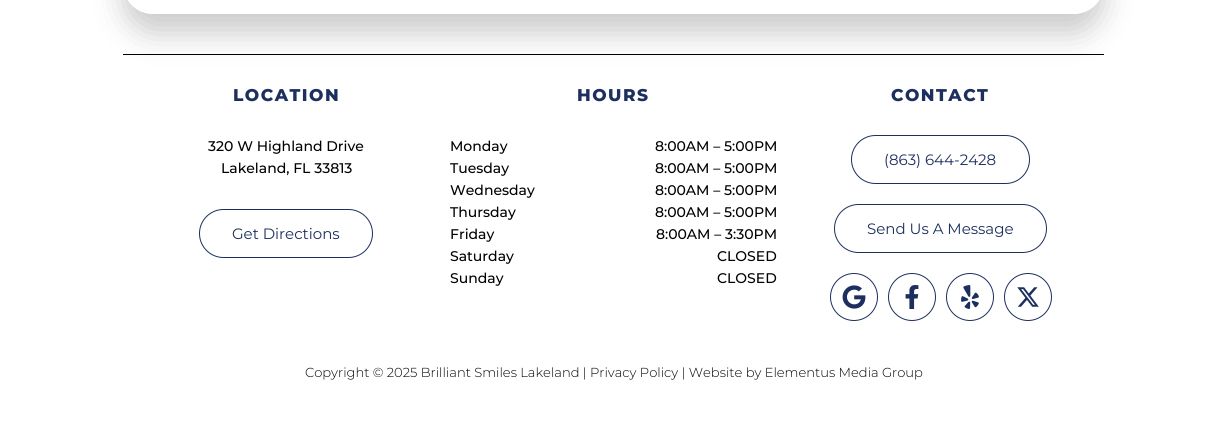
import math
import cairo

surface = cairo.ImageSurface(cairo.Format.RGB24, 1227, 424)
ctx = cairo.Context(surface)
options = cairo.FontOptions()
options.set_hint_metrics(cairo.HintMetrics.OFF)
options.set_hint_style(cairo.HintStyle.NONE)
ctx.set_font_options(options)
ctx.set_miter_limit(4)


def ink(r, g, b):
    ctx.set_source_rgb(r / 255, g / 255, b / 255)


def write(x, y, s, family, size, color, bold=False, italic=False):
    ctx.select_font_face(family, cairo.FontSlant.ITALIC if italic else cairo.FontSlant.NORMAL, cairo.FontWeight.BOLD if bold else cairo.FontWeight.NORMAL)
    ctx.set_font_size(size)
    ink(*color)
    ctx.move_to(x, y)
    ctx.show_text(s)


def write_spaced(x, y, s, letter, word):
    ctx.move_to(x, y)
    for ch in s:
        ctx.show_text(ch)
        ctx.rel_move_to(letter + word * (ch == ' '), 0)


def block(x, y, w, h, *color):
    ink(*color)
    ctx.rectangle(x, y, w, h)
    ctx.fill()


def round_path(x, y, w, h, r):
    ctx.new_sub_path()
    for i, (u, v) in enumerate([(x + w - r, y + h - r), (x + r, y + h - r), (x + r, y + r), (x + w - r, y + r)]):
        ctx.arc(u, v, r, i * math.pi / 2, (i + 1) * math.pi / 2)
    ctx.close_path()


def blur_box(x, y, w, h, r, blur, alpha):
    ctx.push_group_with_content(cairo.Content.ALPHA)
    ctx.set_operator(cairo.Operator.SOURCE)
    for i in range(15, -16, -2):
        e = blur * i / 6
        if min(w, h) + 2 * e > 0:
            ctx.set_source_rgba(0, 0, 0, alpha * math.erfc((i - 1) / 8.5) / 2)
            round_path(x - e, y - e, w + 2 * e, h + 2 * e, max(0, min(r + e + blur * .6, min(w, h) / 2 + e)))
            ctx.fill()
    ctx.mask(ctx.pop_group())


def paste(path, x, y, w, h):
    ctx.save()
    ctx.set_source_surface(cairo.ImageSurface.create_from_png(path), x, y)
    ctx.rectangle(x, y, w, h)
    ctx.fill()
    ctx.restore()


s1 = dict(family="Montserrat Medium", size=14, color=(0, 0, 0))
s2 = dict(family="Montserrat", size=15, color=(28, 47, 94))
s3 = dict(family="Montserrat Light", size=13.05, color=(0, 0, 0))

ink(255, 255, 255)
ctx.paint()
ctx.save()
ctx.set_fill_rule(cairo.FillRule.EVEN_ODD)
ctx.new_path()
ctx.move_to(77, 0)
ctx.line_to(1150, 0)
ctx.line_to(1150, 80)
ctx.line_to(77, 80)
ctx.close_path()
ctx.move_to(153, -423)
ctx.line_to(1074, -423)
ctx.curve_to(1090.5, -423, 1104, -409.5, 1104, -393)
ctx.line_to(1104, -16)
ctx.curve_to(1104, 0.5, 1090.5, 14, 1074, 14)
ctx.line_to(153, 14)
ctx.curve_to(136.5, 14, 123, 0.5, 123, -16)
ctx.line_to(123, -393)
ctx.curve_to(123, -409.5, 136.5, -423, 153, -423)
ctx.close_path()
ctx.clip()
ink(0, 0, 0)
blur_box(123, -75, 981, 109, 30, 15, 0.2)
ctx.restore()
block(123, 54, 981, 1, 0, 0, 0)
ctx.select_font_face("Montserrat ExtraBold")
ctx.set_font_size(17)
ink(28, 47, 94)
write_spaced(233, 101, "LOCATION", 1.5, 0)
write(208, 151, "320 W Highland Drive", **s1)
write(221, 173, "Lakeland, FL 33813", **s1)
round_path(199.5, 209.5, 173, 48, 24)
ink(28, 47, 94)
ctx.set_line_width(1)
ctx.stroke()
write(232, 239, "Get Directions", **s2)
ctx.select_font_face("Montserrat ExtraBold")
ctx.set_font_size(17)
write_spaced(577, 101, "HOURS", 1.5, 0)
write(450, 151, "Monday", **s1)
write(655, 151, "8:00AM – 5:00PM", **s1)
write(450, 173, "Tuesday", **s1)
write(655, 173, "8:00AM – 5:00PM", **s1)
write(450, 195, "Wednesday", **s1)
write(655, 195, "8:00AM – 5:00PM", **s1)
write(450, 217, "Thursday", **s1)
write(655, 217, "8:00AM – 5:00PM", **s1)
write(450, 239, "Friday", **s1)
write(656, 239, "8:00AM – 3:30PM", **s1)
write(450, 261, "Saturday", **s1)
write(717, 261, "CLOSED", **s1)
write(450, 283, "Sunday", **s1)
write(717, 283, "CLOSED", **s1)
ctx.select_font_face("Montserrat ExtraBold")
ctx.set_font_size(17)
ink(28, 47, 94)
write_spaced(891, 101, "CONTACT", 1.5, 0)
round_path(851.5, 135.5, 178, 48, 24)
ctx.stroke()
write(884, 165, "(863) 644-2428", **s2)
round_path(834.5, 204.5, 212, 48, 24)
ctx.stroke()
write(867, 234, "Send Us A Message", **s2)
ctx.new_path()
ctx.arc(854, 297, 23.5, 0, 2 * math.pi)
ctx.stroke()
paste("pic1.png", 842, 285, 24, 24)
ctx.arc(912, 297, 23.5, 0, 2 * math.pi)
ctx.stroke()
paste("pic2.png", 905, 285, 14, 24)
ctx.arc(970, 297, 23.5, 0, 2 * math.pi)
ctx.stroke()
paste("pic3.png", 961, 285, 18, 24)
ctx.arc(1028, 297, 23.5, 0, 2 * math.pi)
ctx.stroke()
paste("pic4.png", 1017, 287, 22, 20)
write(305, 377, "Copyright © 2025 Brilliant Smiles Lakeland | Privacy Policy | Website by Elementus Media Group", **s3)
surface.write_to_png("screenshot.png")
